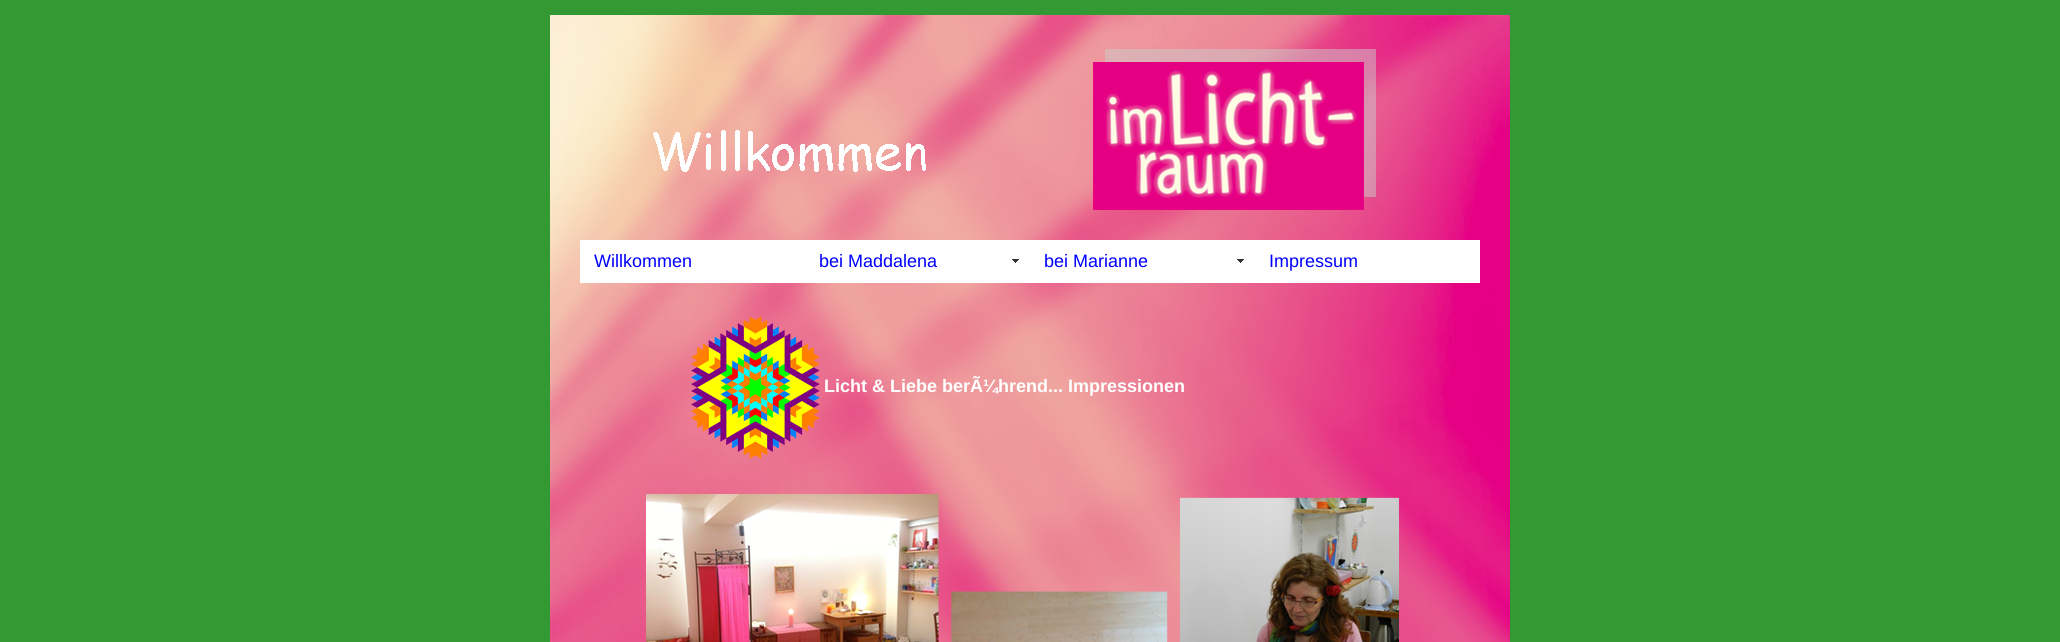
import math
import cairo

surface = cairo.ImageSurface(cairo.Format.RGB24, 2060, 642)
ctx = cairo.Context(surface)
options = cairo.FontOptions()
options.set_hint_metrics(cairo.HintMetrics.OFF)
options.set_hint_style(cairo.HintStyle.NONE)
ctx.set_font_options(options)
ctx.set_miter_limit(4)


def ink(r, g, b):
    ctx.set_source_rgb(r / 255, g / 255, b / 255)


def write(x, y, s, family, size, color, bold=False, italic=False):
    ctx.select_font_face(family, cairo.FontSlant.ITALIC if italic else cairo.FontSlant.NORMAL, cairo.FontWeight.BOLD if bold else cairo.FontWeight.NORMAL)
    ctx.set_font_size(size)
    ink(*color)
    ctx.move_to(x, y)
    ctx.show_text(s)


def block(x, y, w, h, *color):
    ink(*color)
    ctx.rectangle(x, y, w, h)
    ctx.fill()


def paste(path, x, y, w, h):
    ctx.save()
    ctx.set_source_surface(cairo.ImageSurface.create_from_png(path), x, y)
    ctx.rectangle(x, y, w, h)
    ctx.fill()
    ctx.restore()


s1 = dict(family="Liberation Sans", size=18, color=(0, 0, 255))
s2 = dict(family="Liberation Sans", size=18, color=(255, 255, 255), bold=True)

ink(51, 153, 51)
ctx.paint()
paste("pic1.png", 550, 15, 960, 627)
block(580, 240, 900, 43, 255, 255, 255)
write(594, 267, "Willkommen", **s1)
paste("pic2.png", 1012, 259, 7, 4)
write(819, 267, "bei Maddalena", **s1)
paste("pic2.png", 1237, 259, 7, 4)
write(1044, 267, "bei Marianne", **s1)
write(1269, 267, "Impressum", **s1)
paste("pic3.png", 691, 316, 129, 143)
write(824, 392, "Licht & Liebe berÃ¼hrend... Impressionen", **s2)
paste("pic4.png", 646, 494, 753, 148)
surface.write_to_png("screenshot.png")
